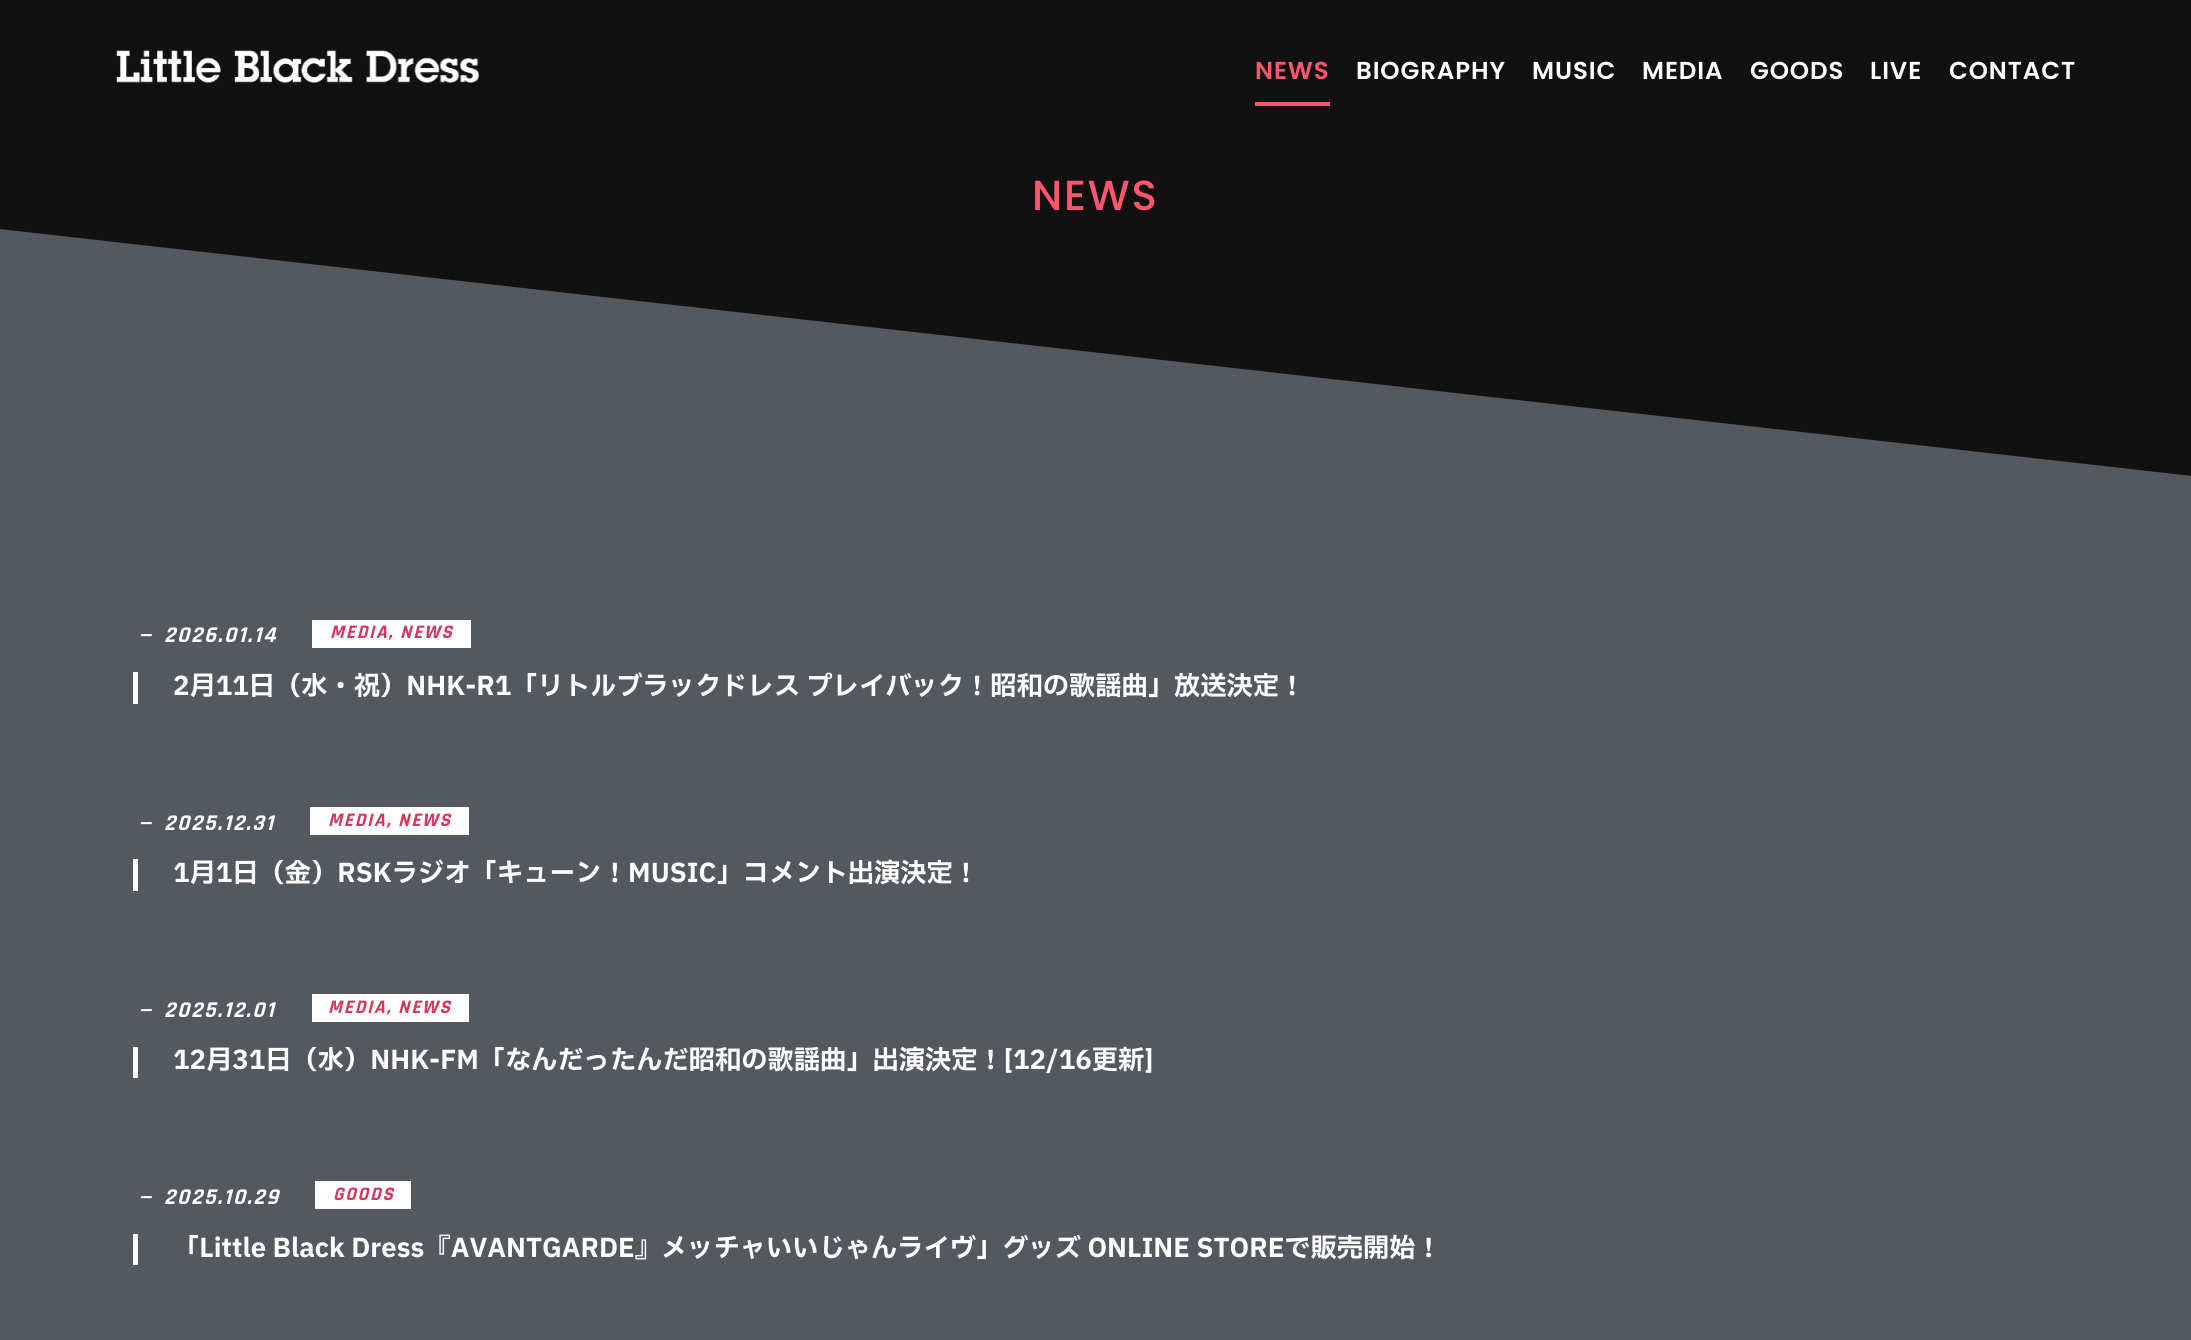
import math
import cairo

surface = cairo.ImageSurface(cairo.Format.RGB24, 2191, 1340)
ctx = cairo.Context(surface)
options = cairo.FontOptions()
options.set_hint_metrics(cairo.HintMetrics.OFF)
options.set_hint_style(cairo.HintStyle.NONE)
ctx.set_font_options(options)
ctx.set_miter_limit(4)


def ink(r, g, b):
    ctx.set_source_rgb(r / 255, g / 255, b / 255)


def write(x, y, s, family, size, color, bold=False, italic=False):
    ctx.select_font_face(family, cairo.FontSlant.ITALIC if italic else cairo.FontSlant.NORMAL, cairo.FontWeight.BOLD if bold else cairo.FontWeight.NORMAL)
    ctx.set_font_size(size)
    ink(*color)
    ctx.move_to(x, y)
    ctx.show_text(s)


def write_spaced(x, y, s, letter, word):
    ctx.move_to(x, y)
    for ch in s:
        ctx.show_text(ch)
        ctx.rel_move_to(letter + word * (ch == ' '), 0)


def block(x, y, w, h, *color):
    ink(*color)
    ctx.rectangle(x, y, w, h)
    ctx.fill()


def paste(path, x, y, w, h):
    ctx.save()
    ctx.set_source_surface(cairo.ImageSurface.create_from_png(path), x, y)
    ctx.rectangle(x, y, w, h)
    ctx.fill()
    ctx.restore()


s1 = dict(family="IBM Plex Sans JP", size=26.25, color=(255, 255, 255), bold=True)

ink(17, 17, 17)
ctx.paint()
paste("pic1.png", 116, 50, 363, 33)
ctx.select_font_face("Poppins SemiBold")
ctx.set_font_size(24.5)
ink(255, 86, 110)
write_spaced(1255, 79, "NEWS", 0.9, 0)
block(1255, 102, 75, 4, 255, 86, 110)
ink(255, 255, 255)
write_spaced(1356, 79, "BIOGRAPHY", 0.9, 0)
write_spaced(1532, 79, "MUSIC", 0.9, 0)
write_spaced(1642, 79, "MEDIA", 0.9, 0)
write_spaced(1750, 79, "GOODS", 0.9, 0)
write_spaced(1870, 79, "LIVE", 0.9, 0)
write_spaced(1949, 79, "CONTACT", 0.9, 0)
ctx.select_font_face("Poppins Medium")
ctx.set_font_size(42)
ink(255, 86, 110)
write_spaced(1032, 210, "NEWS", 1.75, 0)
ink(84, 89, 95)
ctx.new_path()
ctx.move_to(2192, 476)
ctx.line_to(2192, 492)
ctx.line_to(-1, 492)
ctx.line_to(-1, 229)
ctx.close_path()
ctx.fill()
block(0, 492, 2191, 848, 84, 89, 95)
ctx.select_font_face("WenQuanYi Zen Hei", cairo.FontSlant.ITALIC, cairo.FontWeight.BOLD)
ctx.set_font_size(22.75)
ink(255, 255, 255)
write_spaced(133, 642, "－", 1.75, 0)
ctx.select_font_face("Rajdhani", cairo.FontSlant.ITALIC, cairo.FontWeight.BOLD)
write_spaced(164, 642, "2026.01.14", 1.75, 0)
block(312, 620, 159, 28, 255, 255, 255)
ctx.set_font_size(19.25)
ink(215, 54, 92)
write_spaced(330, 638, "MEDIA, NEWS", 1.75, 0)
block(133, 672, 5, 32, 255, 255, 255)
write(173, 695, "2月11日（水・祝）NHK-R1「リトルブラックドレス プレイバック！昭和の歌謡曲」放送決定！", **s1)
ctx.select_font_face("WenQuanYi Zen Hei", cairo.FontSlant.ITALIC, cairo.FontWeight.BOLD)
ctx.set_font_size(22.75)
write_spaced(133, 830, "－", 1.75, 0)
ctx.select_font_face("Rajdhani", cairo.FontSlant.ITALIC, cairo.FontWeight.BOLD)
write_spaced(164, 830, "2025.12.31", 1.75, 0)
block(310, 807, 159, 28, 255, 255, 255)
ctx.set_font_size(19.25)
ink(215, 54, 92)
write_spaced(328, 826, "MEDIA, NEWS", 1.75, 0)
block(133, 859, 5, 32, 255, 255, 255)
write(173, 882, "1月1日（金）RSKラジオ「キューン！MUSIC」コメント出演決定！", **s1)
ctx.select_font_face("WenQuanYi Zen Hei", cairo.FontSlant.ITALIC, cairo.FontWeight.BOLD)
ctx.set_font_size(22.75)
write_spaced(133, 1017, "－", 1.75, 0)
ctx.select_font_face("Rajdhani", cairo.FontSlant.ITALIC, cairo.FontWeight.BOLD)
write_spaced(164, 1017, "2025.12.01", 1.75, 0)
block(312, 994, 157, 28, 255, 255, 255)
ctx.set_font_size(19.25)
ink(215, 54, 92)
write_spaced(328, 1013, "MEDIA, NEWS", 1.75, 0)
block(133, 1047, 5, 31, 255, 255, 255)
write(173, 1069, "12月31日（水）NHK-FM「なんだったんだ昭和の歌謡曲」出演決定！[12/16更新]", **s1)
ctx.select_font_face("WenQuanYi Zen Hei", cairo.FontSlant.ITALIC, cairo.FontWeight.BOLD)
ctx.set_font_size(22.75)
write_spaced(133, 1204, "－", 1.75, 0)
ctx.select_font_face("Rajdhani", cairo.FontSlant.ITALIC, cairo.FontWeight.BOLD)
write_spaced(164, 1204, "2025.10.29", 1.75, 0)
block(315, 1181, 96, 28, 255, 255, 255)
ctx.set_font_size(19.25)
ink(215, 54, 92)
write_spaced(333, 1200, "GOODS", 1.75, 0)
block(133, 1234, 5, 31, 255, 255, 255)
write(173, 1257, "「Little Black Dress『AVANTGARDE』メッチャいいじゃんライヴ」グッズ ONLINE STOREで販売開始！", **s1)
surface.write_to_png("screenshot.png")
